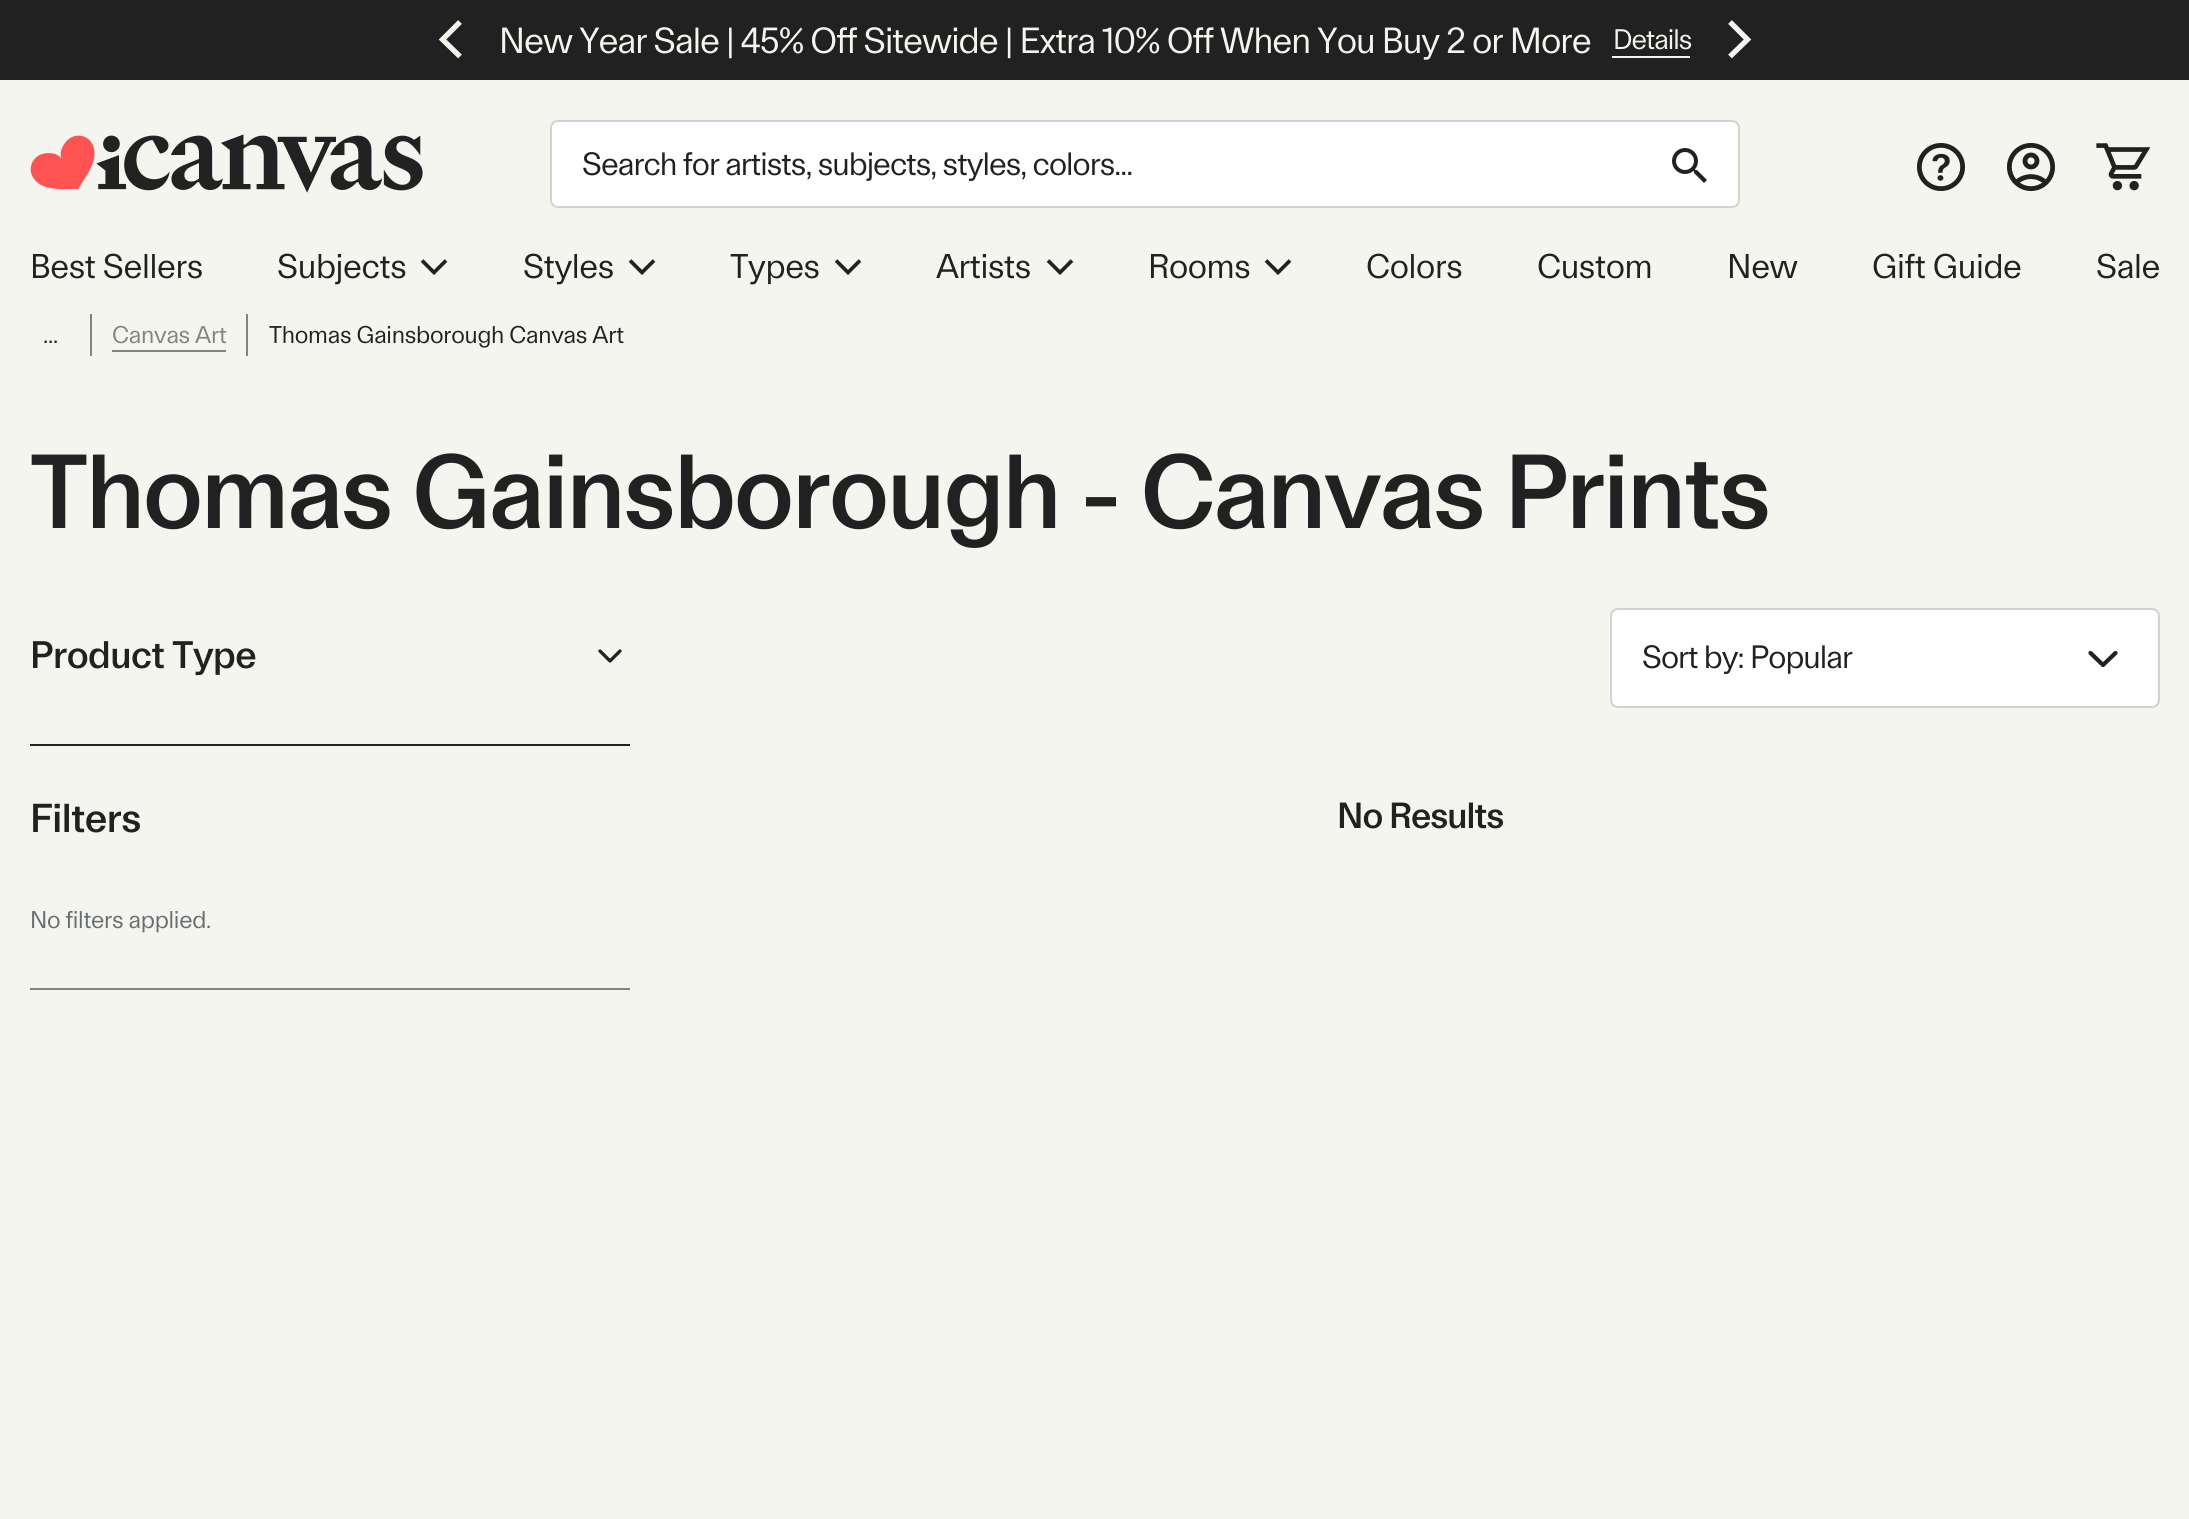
import math
import cairo

surface = cairo.ImageSurface(cairo.Format.RGB24, 2189, 1519)
ctx = cairo.Context(surface)
options = cairo.FontOptions()
options.set_hint_metrics(cairo.HintMetrics.OFF)
options.set_hint_style(cairo.HintStyle.NONE)
ctx.set_font_options(options)
ctx.set_miter_limit(4)


def ink(r, g, b):
    ctx.set_source_rgb(r / 255, g / 255, b / 255)


def write_spaced(x, y, s, letter, word):
    ctx.move_to(x, y)
    for ch in s:
        ctx.show_text(ch)
        ctx.rel_move_to(letter + word * (ch == ' '), 0)


def block(x, y, w, h, *color):
    ink(*color)
    ctx.rectangle(x, y, w, h)
    ctx.fill()


def round_path(x, y, w, h, r):
    ctx.new_sub_path()
    for i, (u, v) in enumerate([(x + w - r, y + h - r), (x + r, y + h - r), (x + r, y + r), (x + w - r, y + r)]):
        ctx.arc(u, v, r, i * math.pi / 2, (i + 1) * math.pi / 2)
    ctx.close_path()


def paste(path, x, y, w, h):
    ctx.save()
    ctx.set_source_surface(cairo.ImageSurface.create_from_png(path), x, y)
    ctx.rectangle(x, y, w, h)
    ctx.fill()
    ctx.restore()


ink(245, 245, 239)
ctx.paint()
block(0, 0, 2189, 80, 33, 33, 33)
ctx.new_path()
ctx.move_to(460, 22)
ctx.line_to(442.5, 39.5)
ctx.line_to(460, 56.5)
ink(245, 245, 239)
ctx.set_line_width(5.3)
ctx.stroke()
ctx.select_font_face("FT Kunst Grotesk")
ctx.set_font_size(36)
write_spaced(499, 53, "New Year Sale | 45% Off Sitewide | Extra 10% Off When You Buy 2 or More", -1, 0)
ctx.set_font_size(28)
write_spaced(1613, 49, "Details", -1, 0)
block(1612, 56, 78, 2, 245, 245, 239)
ctx.new_path()
ctx.move_to(1730, 56.5)
ctx.line_to(1747.5, 39.5)
ctx.line_to(1730, 22)
ctx.stroke()
paste("pic1.png", 30, 134, 393, 59)
ink(255, 255, 255)
round_path(551, 121, 1188, 86, 7)
ctx.fill_preserve()
ink(211, 210, 207)
ctx.set_line_width(2)
ctx.stroke()
ctx.set_font_size(32)
ink(33, 33, 33)
write_spaced(582, 175, "Search for artists, subjects, styles, colors...", -0.95, 0)
paste("pic2.png", 1672, 148, 35, 35)
paste("pic3.png", 1917, 143, 48, 48)
paste("pic4.png", 2007, 143, 48, 48)
paste("pic5.png", 2096, 143, 54, 48)
ctx.set_font_size(34)
write_spaced(30, 278, "Best Sellers", -0.4, 0)
write_spaced(277, 278, "Subjects", -0.4, 0)
ctx.new_path()
ctx.move_to(422, 260.5)
ctx.line_to(434, 272.5)
ctx.line_to(446, 260.5)
ctx.set_line_width(3.7)
ctx.stroke()
write_spaced(523, 278, "Styles", -0.4, 0)
ctx.new_path()
ctx.move_to(630, 260.5)
ctx.line_to(642, 272.5)
ctx.line_to(654, 260.5)
ctx.stroke()
write_spaced(730, 278, "Types", -0.4, 0)
ctx.new_path()
ctx.move_to(836, 260.5)
ctx.line_to(848, 272.5)
ctx.line_to(860, 260.5)
ctx.stroke()
write_spaced(936, 278, "Artists", -0.4, 0)
ctx.new_path()
ctx.move_to(1048, 260.5)
ctx.line_to(1060, 272.5)
ctx.line_to(1072, 260.5)
ctx.stroke()
write_spaced(1148, 278, "Rooms", -0.4, 0)
ctx.new_path()
ctx.move_to(1266, 260.5)
ctx.line_to(1278, 272.5)
ctx.line_to(1290, 260.5)
ctx.stroke()
write_spaced(1366, 278, "Colors", -0.4, 0)
write_spaced(1537, 278, "Custom", -0.4, 0)
write_spaced(1727, 278, "New", -0.4, 0)
write_spaced(1872, 278, "Gift Guide", -0.4, 0)
write_spaced(2096, 278, "Sale", -0.4, 0)
ctx.set_font_size(24)
write_spaced(43, 343, "...", -0.25, 0)
block(90, 314, 2, 42, 134, 131, 121)
write_spaced(112, 343, "Canvas Art", -0.25, 0)
block(112, 350, 114, 2, 134, 131, 121)
block(246, 314, 2, 42, 134, 131, 121)
ink(33, 33, 33)
write_spaced(269, 343, "Thomas Gainsborough Canvas Art", -0.25, 0)
ctx.select_font_face("FT Kunst Grotesk Medium")
ctx.set_font_size(104)
write_spaced(30, 528, "Thomas Gainsborough - Canvas Prints", -2, 0)
block(30, 744, 600, 2, 33, 33, 33)
ctx.set_font_size(38)
write_spaced(30, 668, "Product Type", -0.5, 0)
ctx.new_path()
ctx.move_to(600, 651)
ctx.line_to(610, 661)
ctx.line_to(620, 651)
ctx.set_line_width(3.3)
ctx.set_line_cap(cairo.LineCap.ROUND)
ctx.set_line_join(cairo.LineJoin.ROUND)
ctx.stroke()
ctx.set_font_size(40)
write_spaced(30, 832, "Filters", -0.5, 0)
ctx.select_font_face("FT Kunst Grotesk")
ctx.set_font_size(24)
ink(104, 109, 115)
write_spaced(30, 928, "No filters applied.", -0.25, 0)
block(30, 988, 600, 2, 134, 131, 121)
ink(255, 255, 255)
round_path(1611, 609, 548, 98, 7)
ctx.fill_preserve()
ink(211, 210, 207)
ctx.set_line_width(2)
ctx.set_line_cap(cairo.LineCap.BUTT)
ctx.set_line_join(cairo.LineJoin.MITER)
ctx.stroke()
ctx.set_font_size(32)
ink(33, 33, 33)
write_spaced(1642, 668, "Sort by: Popular", -0.95, 0)
ctx.new_path()
ctx.move_to(2090.5, 653)
ctx.line_to(2103, 665)
ctx.line_to(2115.5, 653)
ctx.set_line_width(4.2)
ctx.set_line_cap(cairo.LineCap.ROUND)
ctx.set_line_join(cairo.LineJoin.ROUND)
ctx.stroke()
ctx.select_font_face("FT Kunst Grotesk Medium")
ctx.set_font_size(36)
write_spaced(1337, 828, "No Results", -1, 0)
surface.write_to_png("screenshot.png")
